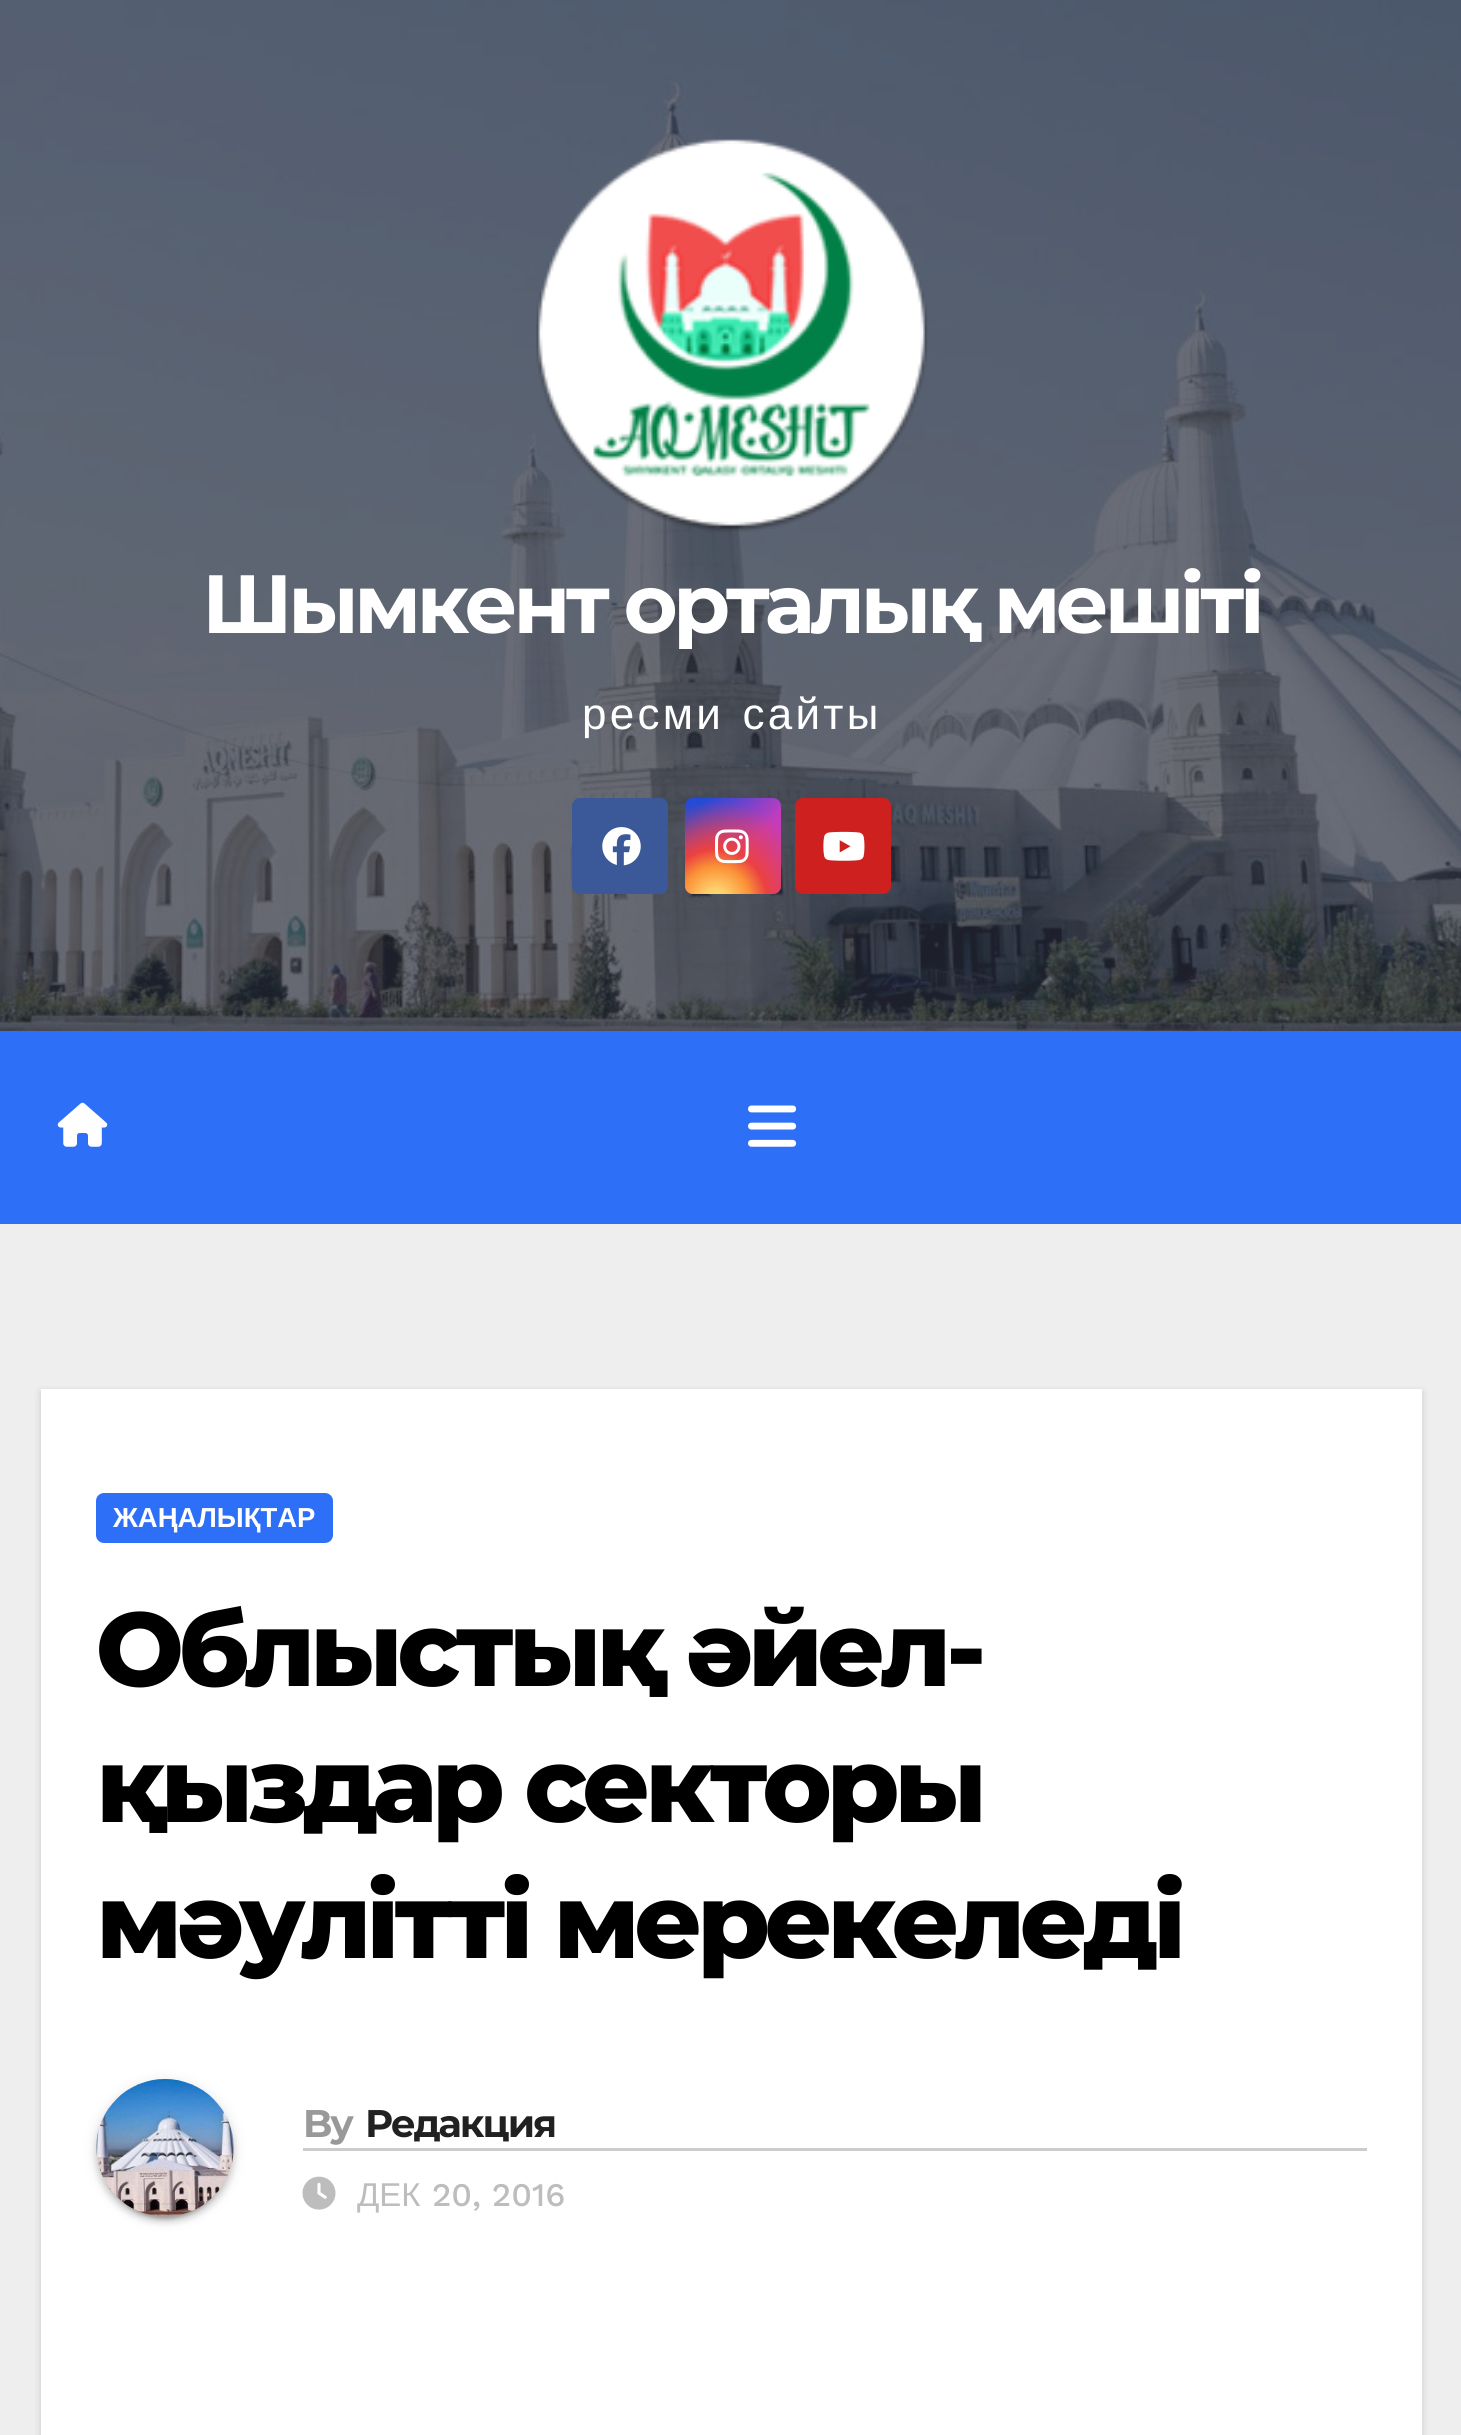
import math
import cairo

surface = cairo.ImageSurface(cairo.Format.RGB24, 1461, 2435)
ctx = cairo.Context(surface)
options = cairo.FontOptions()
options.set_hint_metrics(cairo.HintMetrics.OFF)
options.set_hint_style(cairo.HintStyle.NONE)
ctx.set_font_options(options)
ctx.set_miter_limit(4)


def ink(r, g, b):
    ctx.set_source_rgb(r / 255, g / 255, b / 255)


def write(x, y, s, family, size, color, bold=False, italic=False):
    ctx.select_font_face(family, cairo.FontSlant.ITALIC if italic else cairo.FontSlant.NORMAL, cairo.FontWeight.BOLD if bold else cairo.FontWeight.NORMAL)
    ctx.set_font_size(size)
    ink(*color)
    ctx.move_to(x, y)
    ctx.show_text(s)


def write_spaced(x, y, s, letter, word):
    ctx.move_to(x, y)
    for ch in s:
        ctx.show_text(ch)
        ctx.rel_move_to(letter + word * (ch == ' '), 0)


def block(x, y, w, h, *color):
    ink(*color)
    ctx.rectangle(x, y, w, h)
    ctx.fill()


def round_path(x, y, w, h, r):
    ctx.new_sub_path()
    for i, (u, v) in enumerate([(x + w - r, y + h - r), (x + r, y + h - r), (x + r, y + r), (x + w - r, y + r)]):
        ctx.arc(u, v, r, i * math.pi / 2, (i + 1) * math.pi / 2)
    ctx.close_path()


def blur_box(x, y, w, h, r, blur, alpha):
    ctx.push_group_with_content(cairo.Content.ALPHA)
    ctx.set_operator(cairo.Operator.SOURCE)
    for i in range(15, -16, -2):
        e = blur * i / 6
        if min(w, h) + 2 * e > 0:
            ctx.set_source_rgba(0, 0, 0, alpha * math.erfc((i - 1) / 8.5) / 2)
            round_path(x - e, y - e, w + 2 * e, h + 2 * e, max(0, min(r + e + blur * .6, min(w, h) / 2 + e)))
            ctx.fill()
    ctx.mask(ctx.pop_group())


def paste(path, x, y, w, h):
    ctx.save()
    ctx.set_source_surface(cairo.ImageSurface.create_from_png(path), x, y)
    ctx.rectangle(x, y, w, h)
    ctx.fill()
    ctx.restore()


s1 = dict(family="Liberation Sans", size=27.5, color=(255, 255, 255), bold=True)
s2 = dict(family="Liberation Sans", size=33, color=(189, 189, 189))
s3 = dict(family="Work Sans Medium", size=33, color=(189, 189, 189))

ink(238, 238, 238)
ctx.paint()
paste("pic1.png", 0, 0, 1461, 1031)
paste("pic2.png", 536, 139, 392, 393)
ctx.select_font_face("Montserrat", cairo.FontSlant.NORMAL, cairo.FontWeight.BOLD)
ctx.set_font_size(82.5)
ink(255, 255, 255)
write_spaced(202, 633, "Шымкент орталық мешіті", -4.7, 0)
ctx.select_font_face("Liberation Sans")
ctx.set_font_size(44)
write_spaced(582, 729, "ресми сайты", 3.25, 3)
ink(59, 89, 152)
round_path(572, 798, 96, 96, 8)
ctx.fill()
paste("pic3.png", 602, 827, 39, 39)
gradient = cairo.LinearGradient(685, 798, 781, 894)
gradient.add_color_stop_rgba(0.12, 0.137, 0.294, 0.843, 1)
gradient.add_color_stop_rgba(0.58, 0.765, 0.235, 0.745, 1)
ctx.set_source(gradient)
round_path(685, 798, 96, 96, 8)
ctx.fill()
gradient = cairo.RadialGradient(716, 900, 0, 716, 900, 121)
gradient.add_color_stop_rgba(0, 1, 0.882, 0.49, 1)
gradient.add_color_stop_rgba(0.1, 1, 0.804, 0.412, 1)
gradient.add_color_stop_rgba(0.28, 0.98, 0.569, 0.216, 1)
gradient.add_color_stop_rgba(0.42, 0.922, 0.255, 0.255, 1)
gradient.add_color_stop_rgba(0.82, 0.922, 0.255, 0.255, 0)
ctx.set_source(gradient)
round_path(685, 798, 96, 96, 8)
ctx.fill()
paste("pic4.png", 715, 829, 34, 35)
ink(205, 32, 31)
round_path(795, 798, 96, 96, 8)
ctx.fill()
paste("pic5.png", 823, 831, 42, 30)
block(0, 1031, 1461, 193, 45, 111, 247)
paste("pic6.png", 57, 1102, 51, 45)
paste("pic7.png", 748, 1105, 49, 42)
ink(0, 0, 0)
blur_box(41, 1392, 1381, 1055, 0, 4, 0.15)
block(41, 1389, 1381, 1046, 255, 255, 255)
ink(45, 111, 247)
round_path(96, 1493, 237, 50, 8)
ctx.fill()
write(113, 1527, "ЖАҢАЛЫҚТАР", **s1)
ctx.select_font_face("Montserrat ExtraBold")
ctx.set_font_size(104.5)
ink(0, 0, 0)
write_spaced(96, 1686, "Облыстық әйел-", -5.25, 0)
write_spaced(96, 1822, "қыздар секторы", -5.25, 0)
write_spaced(96, 1958, "мәулітті мерекеледі", -5.25, 0)
ink(0, 0, 0)
blur_box(96, 2082, 138, 137, 68.5, 7, 0.12)
blur_box(102, 2093, 126, 126, 63, 1.5, 0.2)
blur_box(96, 2085, 138, 137, 68.5, 3, 0.14)
paste("pic8.png", 96, 2079, 138, 138)
block(303, 2148, 1064, 3, 204, 204, 204)
ctx.select_font_face("Montserrat", cairo.FontSlant.NORMAL, cairo.FontWeight.BOLD)
ctx.set_font_size(38.5)
ink(153, 153, 153)
write_spaced(303, 2137, "By", -2, 0)
ink(33, 33, 33)
write_spaced(365, 2137, "Редакция", -2, 0)
paste("pic9.png", 302, 2176, 34, 34)
write(357, 2206, "ДЕК", **s2)
write(432, 2206, "20, 2016", **s3)
surface.write_to_png("screenshot.png")
